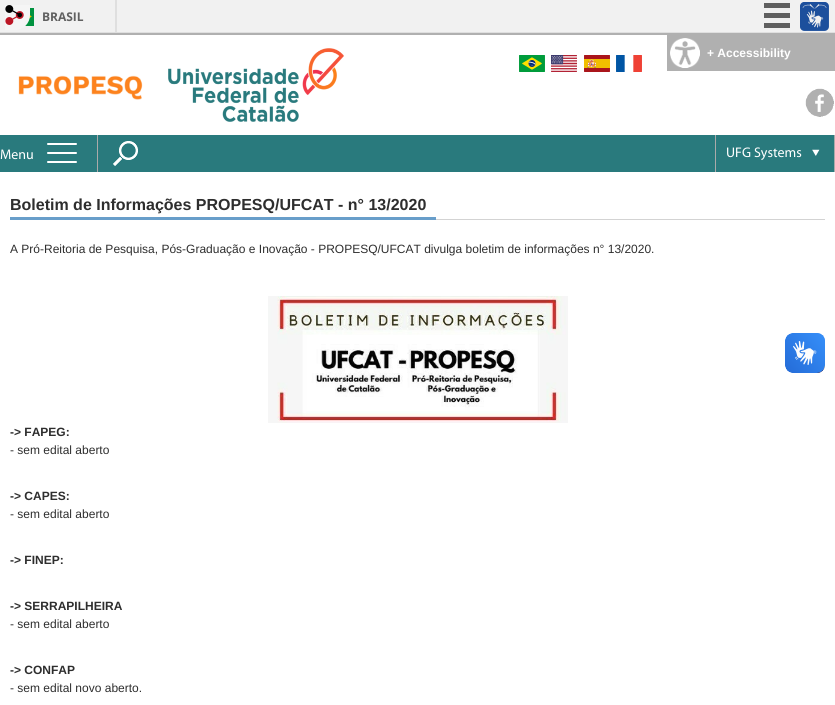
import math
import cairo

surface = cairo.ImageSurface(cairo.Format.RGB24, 835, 705)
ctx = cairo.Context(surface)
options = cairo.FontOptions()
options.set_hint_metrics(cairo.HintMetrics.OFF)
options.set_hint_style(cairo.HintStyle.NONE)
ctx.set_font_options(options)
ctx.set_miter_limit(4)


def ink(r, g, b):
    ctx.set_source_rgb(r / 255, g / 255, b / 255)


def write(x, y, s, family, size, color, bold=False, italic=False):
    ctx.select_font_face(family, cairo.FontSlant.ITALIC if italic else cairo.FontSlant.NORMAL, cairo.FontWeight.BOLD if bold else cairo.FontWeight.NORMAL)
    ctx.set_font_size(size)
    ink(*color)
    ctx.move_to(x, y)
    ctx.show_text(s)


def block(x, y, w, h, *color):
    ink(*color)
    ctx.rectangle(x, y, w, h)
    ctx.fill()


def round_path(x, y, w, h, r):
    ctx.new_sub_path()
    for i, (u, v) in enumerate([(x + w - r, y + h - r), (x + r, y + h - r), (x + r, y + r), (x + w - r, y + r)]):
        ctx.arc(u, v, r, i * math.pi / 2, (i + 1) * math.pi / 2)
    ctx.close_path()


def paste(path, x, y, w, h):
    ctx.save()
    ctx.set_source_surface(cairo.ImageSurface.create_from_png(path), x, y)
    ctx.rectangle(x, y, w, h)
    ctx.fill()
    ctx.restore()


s1 = dict(family="Open Sans", size=12, color=(96, 96, 96), bold=True)
s2 = dict(family="Liberation Sans", size=12, color=(255, 255, 255), bold=True)
s3 = dict(family="Myriad", size=14, color=(255, 255, 255))
s4 = dict(family="Liberation Sans", size=16, color=(46, 46, 46), bold=True)
s5 = dict(family="Liberation Sans", size=12, color=(46, 46, 46))
s6 = dict(family="Liberation Sans", size=12, color=(46, 46, 46), bold=True)

ink(255, 255, 255)
ctx.paint()
block(0, 0, 835, 32, 241, 241, 241)
paste("pic2.png", 25, 8, 9, 18)
paste("pic1.png", 5, 5, 25, 25)
block(0, 32, 835, 1, 223, 223, 223)
block(115, 0, 2, 32, 223, 223, 223)
write(42, 21, "BRASIL", **s1)
block(764, 3, 26, 5, 96, 96, 96)
block(764, 13, 26, 5, 96, 96, 96)
block(764, 23, 26, 5, 96, 96, 96)
paste("pic3.png", 800, 2, 29, 29)
paste("pic4.png", 18, 75, 125, 25)
paste("pic5.png", 168, 48, 176, 74)
paste("pic6.png", 519, 55, 26, 17)
paste("pic7.png", 551, 55, 26, 17)
paste("pic8.png", 584, 55, 26, 17)
paste("pic9.png", 616, 55, 26, 17)
paste("pic10.png", 805, 88, 29, 29)
block(0, 33, 835, 2, 176, 176, 176)
block(667, 35, 168, 36, 176, 176, 176)
paste("pic11.png", 670, 38, 30, 30)
write(707, 57, "+ Accessibility", **s2)
block(0, 135, 834, 37, 41, 122, 125)
block(97, 135, 1, 37, 170, 170, 170)
write(0, 159, "Menu", **s3)
round_path(47, 152, 30, 2, 1)
ctx.fill()
round_path(47, 143, 30, 2, 1)
ctx.fill()
round_path(47, 161, 30, 2, 1)
ctx.fill()
paste("pic12.png", 113, 141, 25, 25)
paste("pic13.png", 812, 149, 8, 7)
block(834, 135, 1, 37, 170, 170, 170)
block(715, 135, 1, 37, 170, 170, 170)
write(726, 157, "UFG Systems", **s3)
block(436, 219, 389, 1, 211, 211, 211)
block(10, 217, 426, 3, 104, 158, 202)
write(10, 210, "Boletim de Informações PROPESQ/UFCAT - n° 13/2020", **s4)
write(10, 253, "A Pró-Reitoria de Pesquisa, Pós-Graduação e Inovação - PROPESQ/UFCAT divulga boletim de informações n° 13/2020.", **s5)
paste("pic14.png", 268, 296, 300, 127)
write(10, 436, "-> FAPEG:", **s6)
write(10, 454, "- sem edital aberto", **s5)
write(10, 500, "-> CAPES:", **s6)
write(10, 518, "- sem edital aberto", **s5)
write(10, 564, "-> FINEP:", **s6)
write(10, 610, "-> SERRAPILHEIRA", **s6)
write(10, 628, "- sem edital aberto", **s5)
write(10, 674, "-> CONFAP", **s6)
write(10, 692, "- sem edital novo aberto.", **s5)
paste("pic15.png", 785, 333, 40, 40)
paste("pic16.png", 785, 333, 40, 40)
surface.write_to_png("screenshot.png")
